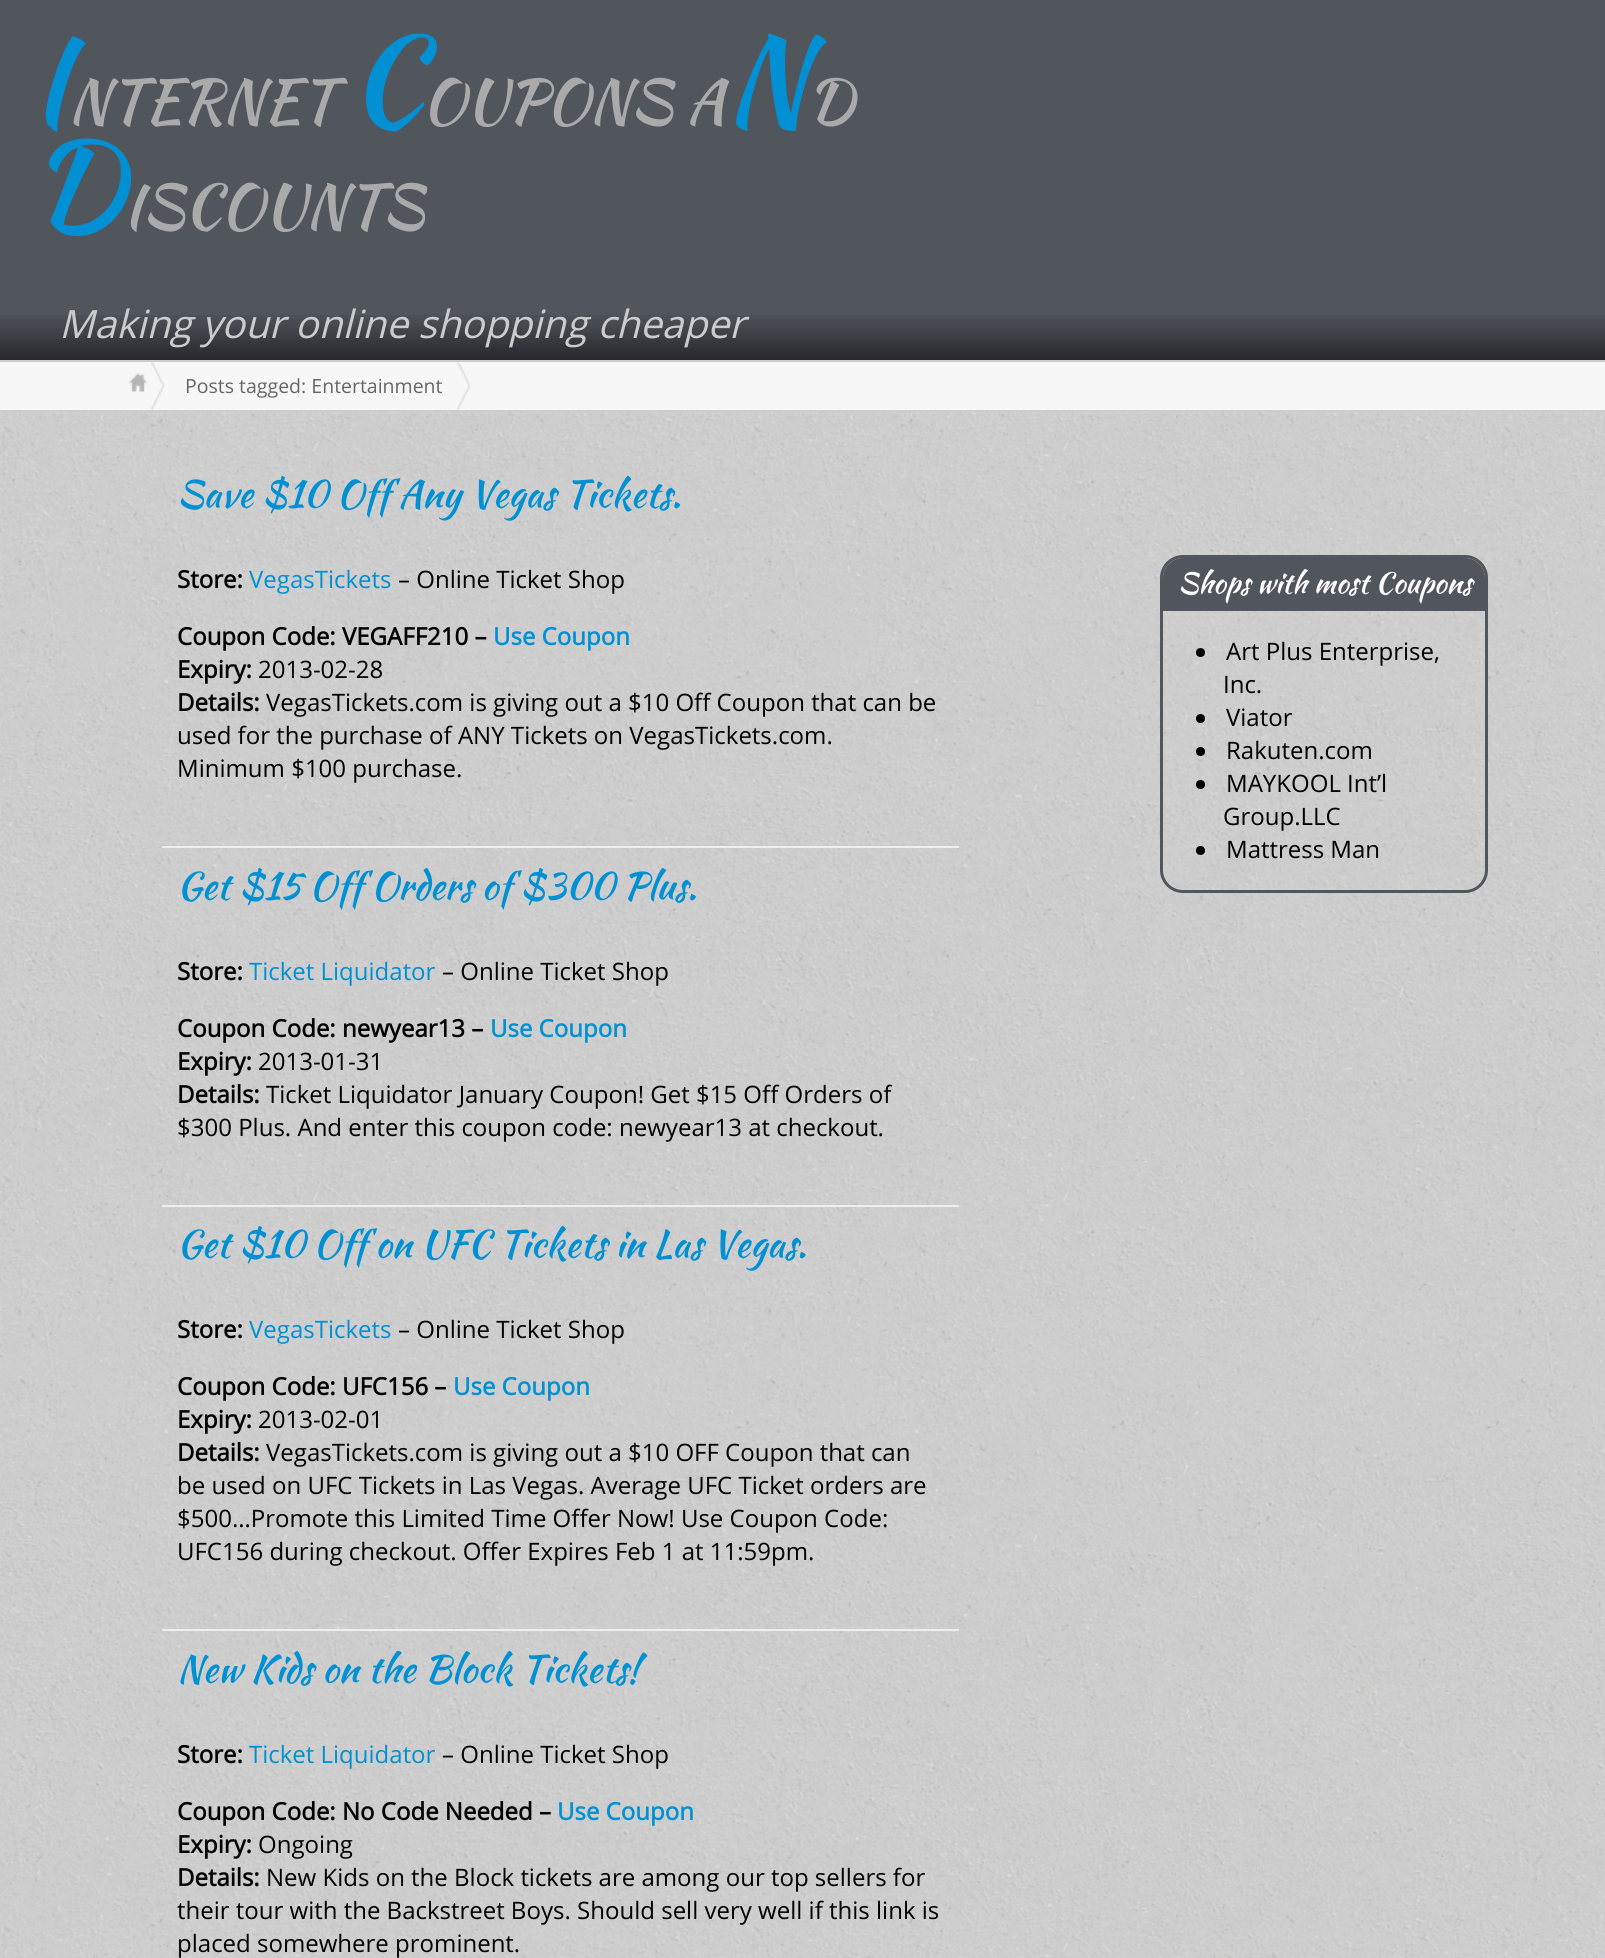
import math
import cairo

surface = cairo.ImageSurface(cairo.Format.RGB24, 1605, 1958)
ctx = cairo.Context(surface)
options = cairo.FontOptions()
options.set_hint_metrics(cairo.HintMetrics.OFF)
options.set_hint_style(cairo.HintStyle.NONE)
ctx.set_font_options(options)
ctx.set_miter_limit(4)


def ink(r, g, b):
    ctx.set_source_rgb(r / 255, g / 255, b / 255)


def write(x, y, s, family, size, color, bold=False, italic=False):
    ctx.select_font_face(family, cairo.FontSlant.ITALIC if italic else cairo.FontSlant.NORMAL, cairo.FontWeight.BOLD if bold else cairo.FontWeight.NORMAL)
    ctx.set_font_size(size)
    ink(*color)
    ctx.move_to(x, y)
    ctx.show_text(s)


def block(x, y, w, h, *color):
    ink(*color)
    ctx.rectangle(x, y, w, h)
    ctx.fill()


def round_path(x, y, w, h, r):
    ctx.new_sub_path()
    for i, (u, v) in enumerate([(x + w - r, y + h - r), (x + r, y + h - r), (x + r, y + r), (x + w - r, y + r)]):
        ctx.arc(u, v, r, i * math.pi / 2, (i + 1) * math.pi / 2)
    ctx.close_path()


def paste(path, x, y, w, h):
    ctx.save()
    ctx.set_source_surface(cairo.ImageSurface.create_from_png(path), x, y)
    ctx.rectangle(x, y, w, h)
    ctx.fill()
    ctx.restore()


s1 = dict(family="Kaushan Script", size=120, color=(0, 144, 211))
s2 = dict(family="Kaushan Script", size=60, color=(170, 170, 170))
s3 = dict(family="Open Sans", size=39, color=(204, 204, 204), italic=True)
s4 = dict(family="Open Sans", size=19.5, color=(102, 102, 102))
s5 = dict(family="Kaushan Script", size=37.5, color=(0, 144, 211))
s6 = dict(family="Open Sans", size=24, color=(0, 0, 0), bold=True)
s7 = dict(family="Open Sans", size=24, color=(0, 144, 211))
s8 = dict(family="Open Sans", size=24, color=(0, 0, 0))
s9 = dict(family="Open Sans", size=24, color=(0, 144, 211), bold=True)
s10 = dict(family="Kaushan Script", size=28.75, color=(255, 255, 255))

ink(255, 255, 255)
ctx.paint()
paste("pic1.png", 0, 412, 1605, 1546)
block(0, 0, 1605, 360, 81, 85, 92)
paste("pic2.png", 0, 315, 1605, 45)
write(30, 122, "I", **s1)
write(68, 122, "NTERNET", **s2)
write(349, 122, "C", **s1)
write(422, 122, "OUPONS A", **s2)
write(725, 122, "N", **s1)
write(807, 122, "D", **s2)
write(30, 227, "D", **s1)
write(123, 227, "ISCOUNTS", **s2)
write(59, 338, "Making your online shopping cheaper", **s3)
block(0, 362, 1605, 48, 247, 247, 247)
block(0, 360, 1605, 2, 204, 204, 204)
block(0, 410, 1605, 2, 204, 204, 204)
paste("pic3.png", 129, 373, 18, 19)
paste("pic4.png", 150, 361, 15, 49)
write(185, 393, "Posts tagged: Entertainment", **s4)
paste("pic5.png", 456, 361, 15, 49)
write(177, 507, "Save $10 Off Any Vegas Tickets.", **s5)
write(177, 588, "Store:", **s6)
write(249, 588, "VegasTickets", **s7)
write(398, 588, "– Online Ticket Shop", **s8)
write(177, 645, "Coupon Code: VEGAFF210 –", **s6)
write(493, 645, "Use Coupon", **s9)
write(177, 678, "Expiry:", **s6)
write(258, 678, "2013-02-28", **s8)
write(177, 711, "Details:", **s6)
write(266, 711, "VegasTickets.com is giving out a $10 Off Coupon that can be", **s8)
write(177, 744, "used for the purchase of ANY Tickets on VegasTickets.com.", **s8)
write(177, 777, "Minimum $100 purchase.", **s8)
block(162, 846, 797, 2, 238, 238, 238)
write(177, 899, "Get $15 Off Orders of $300 Plus.", **s5)
write(177, 980, "Store:", **s6)
write(249, 980, "Ticket Liquidator", **s7)
write(442, 980, "– Online Ticket Shop", **s8)
write(177, 1037, "Coupon Code: newyear13 –", **s6)
write(490, 1037, "Use Coupon", **s9)
write(177, 1070, "Expiry:", **s6)
write(258, 1070, "2013-01-31", **s8)
write(177, 1103, "Details:", **s6)
write(266, 1103, "Ticket Liquidator January Coupon! Get $15 Off Orders of", **s8)
write(177, 1136, "$300 Plus. And enter this coupon code: newyear13 at checkout.", **s8)
block(162, 1205, 797, 2, 238, 238, 238)
write(177, 1257, "Get $10 Off on UFC Tickets in Las Vegas.", **s5)
write(177, 1338, "Store:", **s6)
write(249, 1338, "VegasTickets", **s7)
write(398, 1338, "– Online Ticket Shop", **s8)
write(177, 1395, "Coupon Code: UFC156 –", **s6)
write(453, 1395, "Use Coupon", **s9)
write(177, 1428, "Expiry:", **s6)
write(258, 1428, "2013-02-01", **s8)
write(177, 1461, "Details:", **s6)
write(266, 1461, "VegasTickets.com is giving out a $10 OFF Coupon that can", **s8)
write(177, 1494, "be used on UFC Tickets in Las Vegas. Average UFC Ticket orders are", **s8)
write(177, 1527, "$500…Promote this Limited Time Offer Now! Use Coupon Code:", **s8)
write(177, 1560, "UFC156 during checkout. Offer Expires Feb 1 at 11:59pm.", **s8)
block(162, 1629, 797, 2, 238, 238, 238)
write(177, 1682, "New Kids on the Block Tickets!", **s5)
write(177, 1763, "Store:", **s6)
write(249, 1763, "Ticket Liquidator", **s7)
write(442, 1763, "– Online Ticket Shop", **s8)
write(177, 1820, "Coupon Code: No Code Needed –", **s6)
write(557, 1820, "Use Coupon", **s9)
write(177, 1853, "Expiry:", **s6)
write(258, 1853, "Ongoing", **s8)
write(177, 1886, "Details:", **s6)
write(266, 1886, "New Kids on the Block tickets are among our top sellers for", **s8)
write(177, 1919, "their tour with the Backstreet Boys. Should sell very well if this link is", **s8)
write(177, 1952, "placed somewhere prominent.", **s8)
round_path(1161.5, 556.5, 325, 335, 21.5)
ink(81, 85, 92)
ctx.set_line_width(3)
ctx.stroke()
ctx.new_path()
ctx.move_to(1183, 558)
ctx.line_to(1465, 558)
ctx.curve_to(1476, 558, 1485, 567, 1485, 578)
ctx.line_to(1485, 611)
ctx.line_to(1163, 611)
ctx.line_to(1163, 578)
ctx.curve_to(1163, 567, 1172, 558, 1183, 558)
ctx.close_path()
ctx.fill()
write(1178, 593, "Shops with most Coupons", **s10)
ink(0, 0, 0)
ctx.new_path()
ctx.arc(1200.5, 652.5, 4.5, 0, 2 * math.pi)
ctx.fill()
write(1226, 660, "Art Plus Enterprise,", **s8)
write(1223, 693, "Inc.", **s8)
ctx.new_path()
ctx.arc(1200.5, 718.5, 4.5, 0, 2 * math.pi)
ctx.fill()
write(1226, 726, "Viator", **s8)
ctx.new_path()
ctx.arc(1200.5, 751.5, 4.5, 0, 2 * math.pi)
ctx.fill()
write(1226, 759, "Rakuten.com", **s8)
ctx.new_path()
ctx.arc(1200.5, 784.5, 4.5, 0, 2 * math.pi)
ctx.fill()
write(1226, 792, "MAYKOOL Int’l", **s8)
write(1223, 825, "Group.LLC", **s8)
ctx.new_path()
ctx.arc(1200.5, 850.5, 4.5, 0, 2 * math.pi)
ctx.fill()
write(1226, 858, "Mattress Man", **s8)
surface.write_to_png("screenshot.png")
